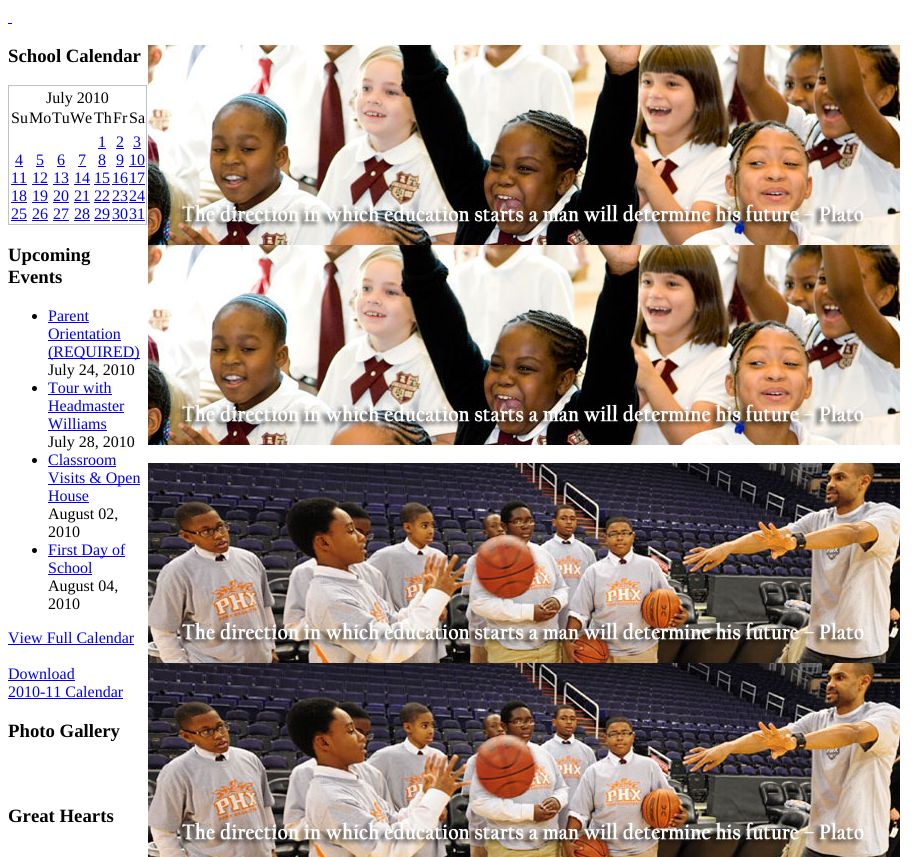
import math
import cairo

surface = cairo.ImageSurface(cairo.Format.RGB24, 912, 857)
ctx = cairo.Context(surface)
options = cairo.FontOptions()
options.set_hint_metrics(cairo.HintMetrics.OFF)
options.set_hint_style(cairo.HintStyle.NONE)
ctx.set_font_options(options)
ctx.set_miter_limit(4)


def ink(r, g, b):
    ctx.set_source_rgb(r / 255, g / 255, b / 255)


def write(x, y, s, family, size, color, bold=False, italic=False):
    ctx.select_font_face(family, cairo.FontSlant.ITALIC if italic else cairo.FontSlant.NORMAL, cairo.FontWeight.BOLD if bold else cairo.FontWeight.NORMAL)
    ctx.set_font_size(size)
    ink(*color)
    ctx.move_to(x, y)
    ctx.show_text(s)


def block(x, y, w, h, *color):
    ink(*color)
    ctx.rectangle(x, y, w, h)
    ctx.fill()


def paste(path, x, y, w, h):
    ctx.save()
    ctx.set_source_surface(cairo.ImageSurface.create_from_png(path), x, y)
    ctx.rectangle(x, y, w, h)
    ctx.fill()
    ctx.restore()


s1 = dict(family="Liberation Serif", size=18.75, color=(0, 0, 0), bold=True)
s2 = dict(family="Liberation Serif", size=16, color=(0, 0, 0))
s3 = dict(family="Liberation Serif", size=16, color=(0, 0, 238))

ink(255, 255, 255)
ctx.paint()
block(8, 23, 4, 1, 0, 0, 238)
write(8, 62, "School Calendar", **s1)
ctx.rectangle(8.5, 85.5, 138, 139)
ink(190, 194, 195)
ctx.set_line_width(1)
ctx.stroke()
write(46, 103, "July 2010", **s2)
write(11, 123, "Su", **s2)
write(29, 123, "Mo", **s2)
write(52, 123, "Tu", **s2)
write(70, 123, "We", **s2)
write(94, 123, "Th", **s2)
write(113, 123, "Fr", **s2)
write(129, 123, "Sa", **s2)
write(98, 147, "1", **s3)
block(98, 148, 8, 1, 0, 0, 238)
write(116, 147, "2", **s3)
block(116, 148, 8, 1, 0, 0, 238)
write(133, 147, "3", **s3)
block(133, 148, 8, 1, 0, 0, 238)
write(15, 165, "4", **s3)
block(15, 166, 8, 1, 0, 0, 238)
write(36, 165, "5", **s3)
block(36, 166, 8, 1, 0, 0, 238)
write(57, 165, "6", **s3)
block(57, 166, 8, 1, 0, 0, 238)
write(78, 165, "7", **s3)
block(78, 166, 8, 1, 0, 0, 238)
write(98, 165, "8", **s3)
block(98, 166, 8, 1, 0, 0, 238)
write(116, 165, "9", **s3)
block(116, 166, 8, 1, 0, 0, 238)
write(129, 165, "10", **s3)
block(129, 166, 16, 1, 0, 0, 238)
write(11, 183, "11", **s3)
block(11, 184, 16, 1, 0, 0, 238)
write(32, 183, "12", **s3)
block(32, 184, 16, 1, 0, 0, 238)
write(53, 183, "13", **s3)
block(53, 184, 16, 1, 0, 0, 238)
write(74, 183, "14", **s3)
block(74, 184, 16, 1, 0, 0, 238)
write(94, 183, "15", **s3)
block(94, 184, 16, 1, 0, 0, 238)
write(112, 183, "16", **s3)
block(112, 184, 16, 1, 0, 0, 238)
write(129, 183, "17", **s3)
block(129, 184, 16, 1, 0, 0, 238)
write(11, 201, "18", **s3)
block(11, 202, 16, 1, 0, 0, 238)
write(32, 201, "19", **s3)
block(32, 202, 16, 1, 0, 0, 238)
write(53, 201, "20", **s3)
block(53, 202, 16, 1, 0, 0, 238)
write(74, 201, "21", **s3)
block(74, 202, 16, 1, 0, 0, 238)
write(94, 201, "22", **s3)
block(94, 202, 16, 1, 0, 0, 238)
write(112, 201, "23", **s3)
block(112, 202, 16, 1, 0, 0, 238)
write(129, 201, "24", **s3)
block(129, 202, 16, 1, 0, 0, 238)
write(11, 219, "25", **s3)
block(11, 220, 16, 1, 0, 0, 238)
write(32, 219, "26", **s3)
block(32, 220, 16, 1, 0, 0, 238)
write(53, 219, "27", **s3)
block(53, 220, 16, 1, 0, 0, 238)
write(74, 219, "28", **s3)
block(74, 220, 16, 1, 0, 0, 238)
write(94, 219, "29", **s3)
block(94, 220, 16, 1, 0, 0, 238)
write(112, 219, "30", **s3)
block(112, 220, 16, 1, 0, 0, 238)
write(129, 219, "31", **s3)
block(129, 220, 16, 1, 0, 0, 238)
write(8, 261, "Upcoming", **s1)
write(8, 283, "Events", **s1)
ctx.new_path()
ctx.arc(34.5, 316.5, 2.5, 0, 2 * math.pi)
ctx.fill()
write(48, 321, "Parent", **s3)
block(48, 322, 41, 1, 0, 0, 238)
write(48, 339, "Orientation", **s3)
block(48, 340, 73, 1, 0, 0, 238)
block(48, 358, 92, 1, 0, 0, 238)
write(48, 357, "(REQUIRED)", **s3)
write(48, 375, "July 24, 2010", **s2)
ctx.new_path()
ctx.arc(34.5, 388.5, 2.5, 0, 2 * math.pi)
ctx.fill()
write(48, 393, "Tour with", **s3)
block(48, 394, 64, 1, 0, 0, 238)
write(48, 411, "Headmaster", **s3)
block(48, 412, 76, 1, 0, 0, 238)
write(48, 429, "Williams", **s3)
block(48, 430, 59, 1, 0, 0, 238)
write(48, 447, "July 28, 2010", **s2)
ctx.new_path()
ctx.arc(34.5, 460.5, 2.5, 0, 2 * math.pi)
ctx.fill()
write(48, 465, "Classroom", **s3)
block(48, 466, 68, 1, 0, 0, 238)
block(48, 484, 92, 1, 0, 0, 238)
write(48, 483, "Visits & Open", **s3)
write(48, 501, "House", **s3)
block(48, 502, 41, 1, 0, 0, 238)
write(48, 519, "August 02,", **s2)
write(48, 537, "2010", **s2)
ctx.new_path()
ctx.arc(34.5, 550.5, 2.5, 0, 2 * math.pi)
ctx.fill()
block(48, 556, 77, 1, 0, 0, 238)
write(48, 555, "First Day of", **s3)
write(48, 573, "School", **s3)
block(48, 574, 44, 1, 0, 0, 238)
write(48, 591, "August 04,", **s2)
write(48, 609, "2010", **s2)
write(8, 643, "View Full Calendar", **s3)
block(8, 644, 126, 1, 0, 0, 238)
write(8, 679, "Download", **s3)
block(8, 680, 67, 1, 0, 0, 238)
write(8, 697, "2010-11 Calendar", **s3)
block(8, 698, 115, 1, 0, 0, 238)
write(8, 737, "Photo Gallery", **s1)
write(8, 822, "Great Hearts", **s1)
paste("pic1.png", 148, 45, 752, 200)
paste("pic1.png", 148, 245, 752, 200)
paste("pic2.png", 148, 463, 752, 200)
paste("pic3.png", 148, 663, 752, 194)
surface.write_to_png("screenshot.png")
